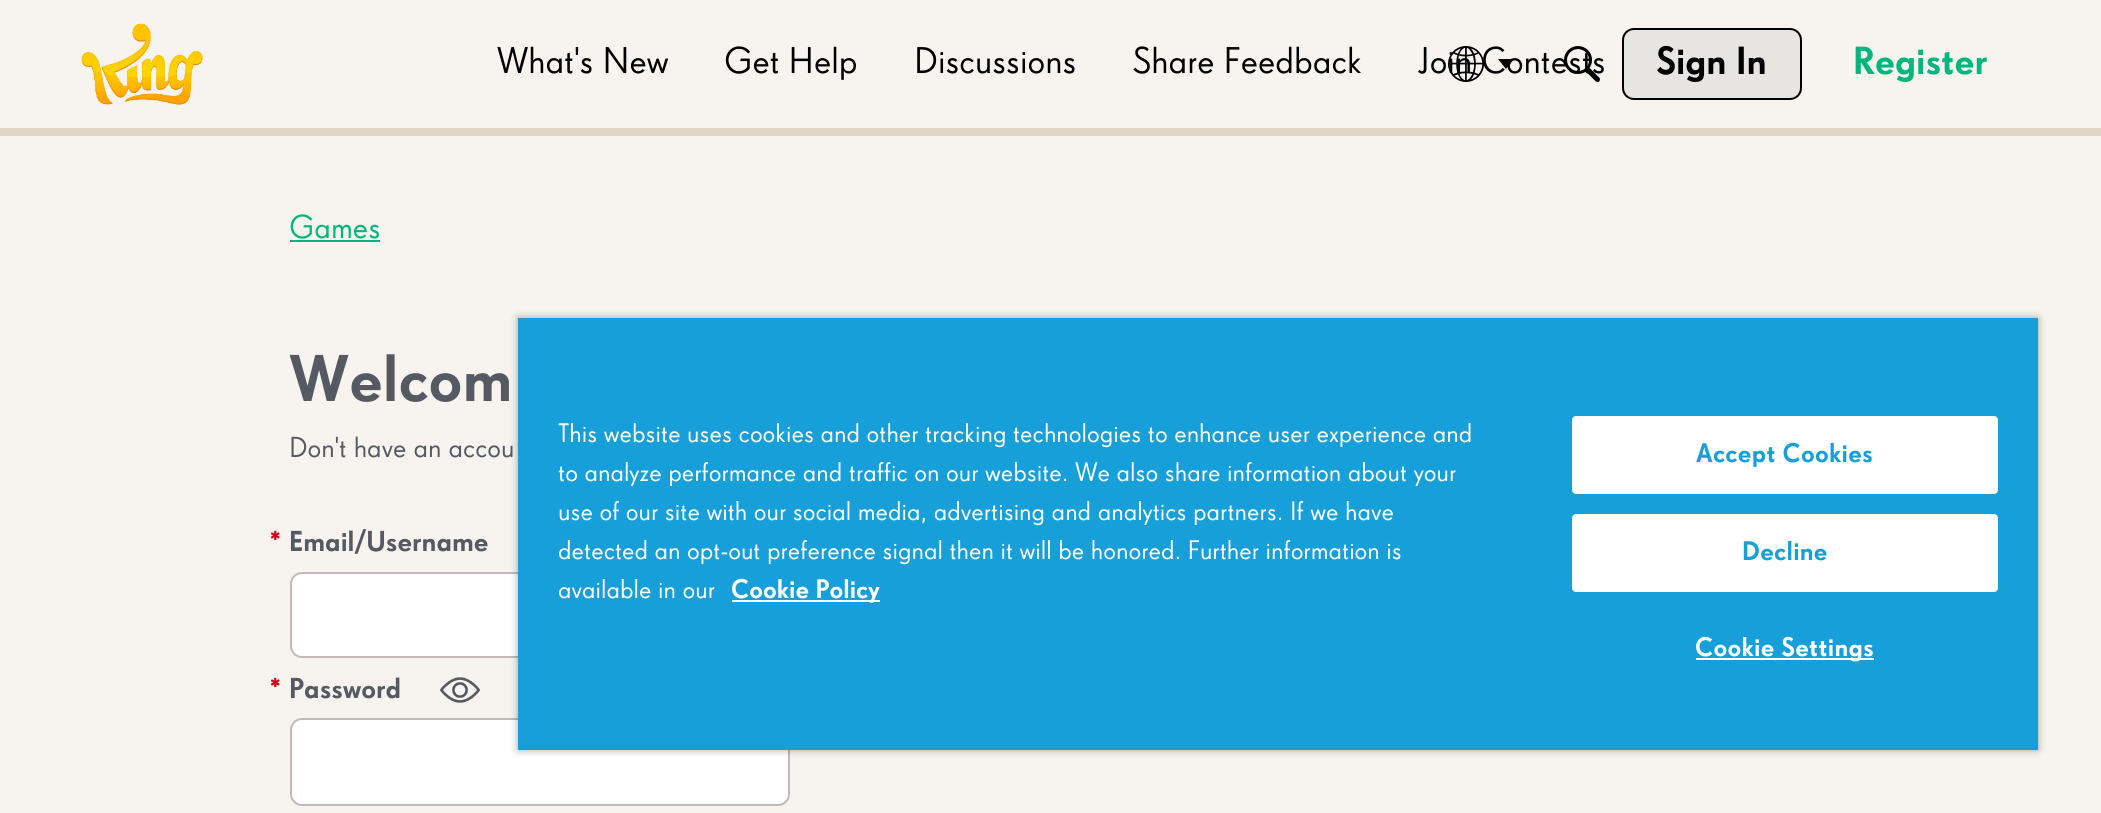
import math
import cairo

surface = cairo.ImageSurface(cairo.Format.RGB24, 2101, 813)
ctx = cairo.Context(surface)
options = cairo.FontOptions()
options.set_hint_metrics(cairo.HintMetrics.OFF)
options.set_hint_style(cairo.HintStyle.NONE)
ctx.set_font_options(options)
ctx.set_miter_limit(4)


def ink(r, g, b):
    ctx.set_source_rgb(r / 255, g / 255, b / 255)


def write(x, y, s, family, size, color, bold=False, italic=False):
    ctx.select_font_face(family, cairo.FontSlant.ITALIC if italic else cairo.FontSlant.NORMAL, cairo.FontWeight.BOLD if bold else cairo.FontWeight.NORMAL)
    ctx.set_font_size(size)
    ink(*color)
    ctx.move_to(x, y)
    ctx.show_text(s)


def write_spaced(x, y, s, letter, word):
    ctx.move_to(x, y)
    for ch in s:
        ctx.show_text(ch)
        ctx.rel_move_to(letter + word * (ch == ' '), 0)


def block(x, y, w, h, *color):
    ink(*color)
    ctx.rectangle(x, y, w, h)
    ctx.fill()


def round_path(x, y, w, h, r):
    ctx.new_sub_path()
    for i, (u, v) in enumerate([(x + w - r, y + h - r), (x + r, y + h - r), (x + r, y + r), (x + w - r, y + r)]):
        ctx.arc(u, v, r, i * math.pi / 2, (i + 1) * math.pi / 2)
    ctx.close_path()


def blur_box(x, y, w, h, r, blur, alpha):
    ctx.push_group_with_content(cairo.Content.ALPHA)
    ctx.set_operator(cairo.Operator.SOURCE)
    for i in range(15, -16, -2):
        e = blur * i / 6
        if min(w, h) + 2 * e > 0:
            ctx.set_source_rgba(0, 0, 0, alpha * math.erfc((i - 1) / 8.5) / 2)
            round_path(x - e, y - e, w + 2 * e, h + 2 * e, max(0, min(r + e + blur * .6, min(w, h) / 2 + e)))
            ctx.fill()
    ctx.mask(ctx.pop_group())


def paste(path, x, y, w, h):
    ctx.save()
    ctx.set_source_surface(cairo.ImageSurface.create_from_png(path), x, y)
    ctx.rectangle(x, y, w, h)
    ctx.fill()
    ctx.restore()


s1 = dict(family="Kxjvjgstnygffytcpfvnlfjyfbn", size=36, color=(0, 0, 0))
s2 = dict(family="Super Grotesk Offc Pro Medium", size=38, color=(0, 0, 0))
s3 = dict(family="Super Grotesk Offc Pro Medium", size=38, color=(0, 182, 125))
s4 = dict(family="Kxjvjgstnygffytcpfvnlfjyfbn", size=32, color=(0, 182, 125))
s5 = dict(family="Super Grotesk Offc Pro Medium", size=64, color=(85, 90, 98))
s6 = dict(family="Kxjvjgstnygffytcpfvnlfjyfbn", size=28, color=(85, 90, 98))
s7 = dict(family="Super Grotesk Offc Pro Medium", size=28, color=(208, 2, 27))
s8 = dict(family="Super Grotesk Offc Pro Medium", size=28, color=(85, 90, 98))
s9 = dict(family="Kxjvjgstnygffytcpfvnlfjyfbn", size=26, color=(255, 255, 255))
s10 = dict(family="Super Grotesk Offc Pro Medium", size=26, color=(255, 255, 255))

ink(247, 244, 239)
ctx.paint()
block(0, 128, 2101, 8, 226, 213, 199)
paste("pic1.png", 81, 23, 122, 82)
write(497, 73, "What's New", **s1)
write(724, 73, "Get Help", **s1)
write(914, 73, "Discussions", **s1)
write(1132, 73, "Share Feedback", **s1)
write(1418, 73, "Join Contests", **s1)
paste("pic2.png", 1448, 46, 36, 36)
ctx.new_path()
ctx.move_to(1498, 59)
ctx.line_to(1514, 59)
ctx.line_to(1506, 69)
ctx.close_path()
ctx.fill()
paste("pic3.png", 1564, 46, 36, 36)
ink(231, 229, 225)
round_path(1623, 29, 178, 70, 11)
ctx.fill_preserve()
ink(0, 0, 0)
ctx.stroke()
write(1656, 74, "Sign In", **s2)
write(1853, 74, "Register", **s3)
write(289, 238, "Games", **s4)
block(290, 240, 90, 2, 0, 182, 125)
write(289, 401, "Welcom", **s5)
write(289, 457, "Don't have an accou", **s6)
write(269, 551, "*", **s7)
write(289, 551, "Email/Username", **s8)
ink(255, 255, 255)
round_path(291, 573, 498, 84, 11)
ctx.fill_preserve()
ink(197, 184, 184)
ctx.stroke()
write(269, 698, "*", **s7)
write(289, 698, "Password", **s8)
paste("pic4.png", 440, 677, 40, 26)
ink(255, 255, 255)
round_path(291, 719, 498, 86, 11)
ctx.fill_preserve()
ink(197, 184, 184)
ctx.stroke()
ink(0, 0, 0)
blur_box(518, 318, 1520, 432, 0, 4, 0.35)
block(518, 318, 1520, 432, 22, 159, 217)
write(558, 442, "This website uses cookies and other tracking technologies to enhance user experience and", **s9)
write(558, 481, "to analyze performance and traffic on our website. We also share information about your", **s9)
write(558, 520, "use of our site with our social media, advertising and analytics partners. If we have", **s9)
write(558, 559, "detected an opt-out preference signal then it will be honored. Further information is", **s9)
write(558, 598, "available in our", **s9)
block(732, 600, 148, 2, 255, 255, 255)
write(731, 598, "Cookie Policy", **s10)
round_path(1573, 417, 424, 76, 3)
ctx.fill_preserve()
ctx.stroke()
ink(22, 159, 217)
write_spaced(1696, 462, "Accept Cookies", 0.25, 0)
ink(255, 255, 255)
round_path(1573, 515, 424, 76, 3)
ctx.fill_preserve()
ctx.stroke()
ink(22, 159, 217)
write_spaced(1742, 560, "Decline", 0.25, 0)
block(1696, 658, 178, 2, 255, 255, 255)
write_spaced(1695, 656, "Cookie Settings", 0.25, 0)
surface.write_to_png("screenshot.png")
